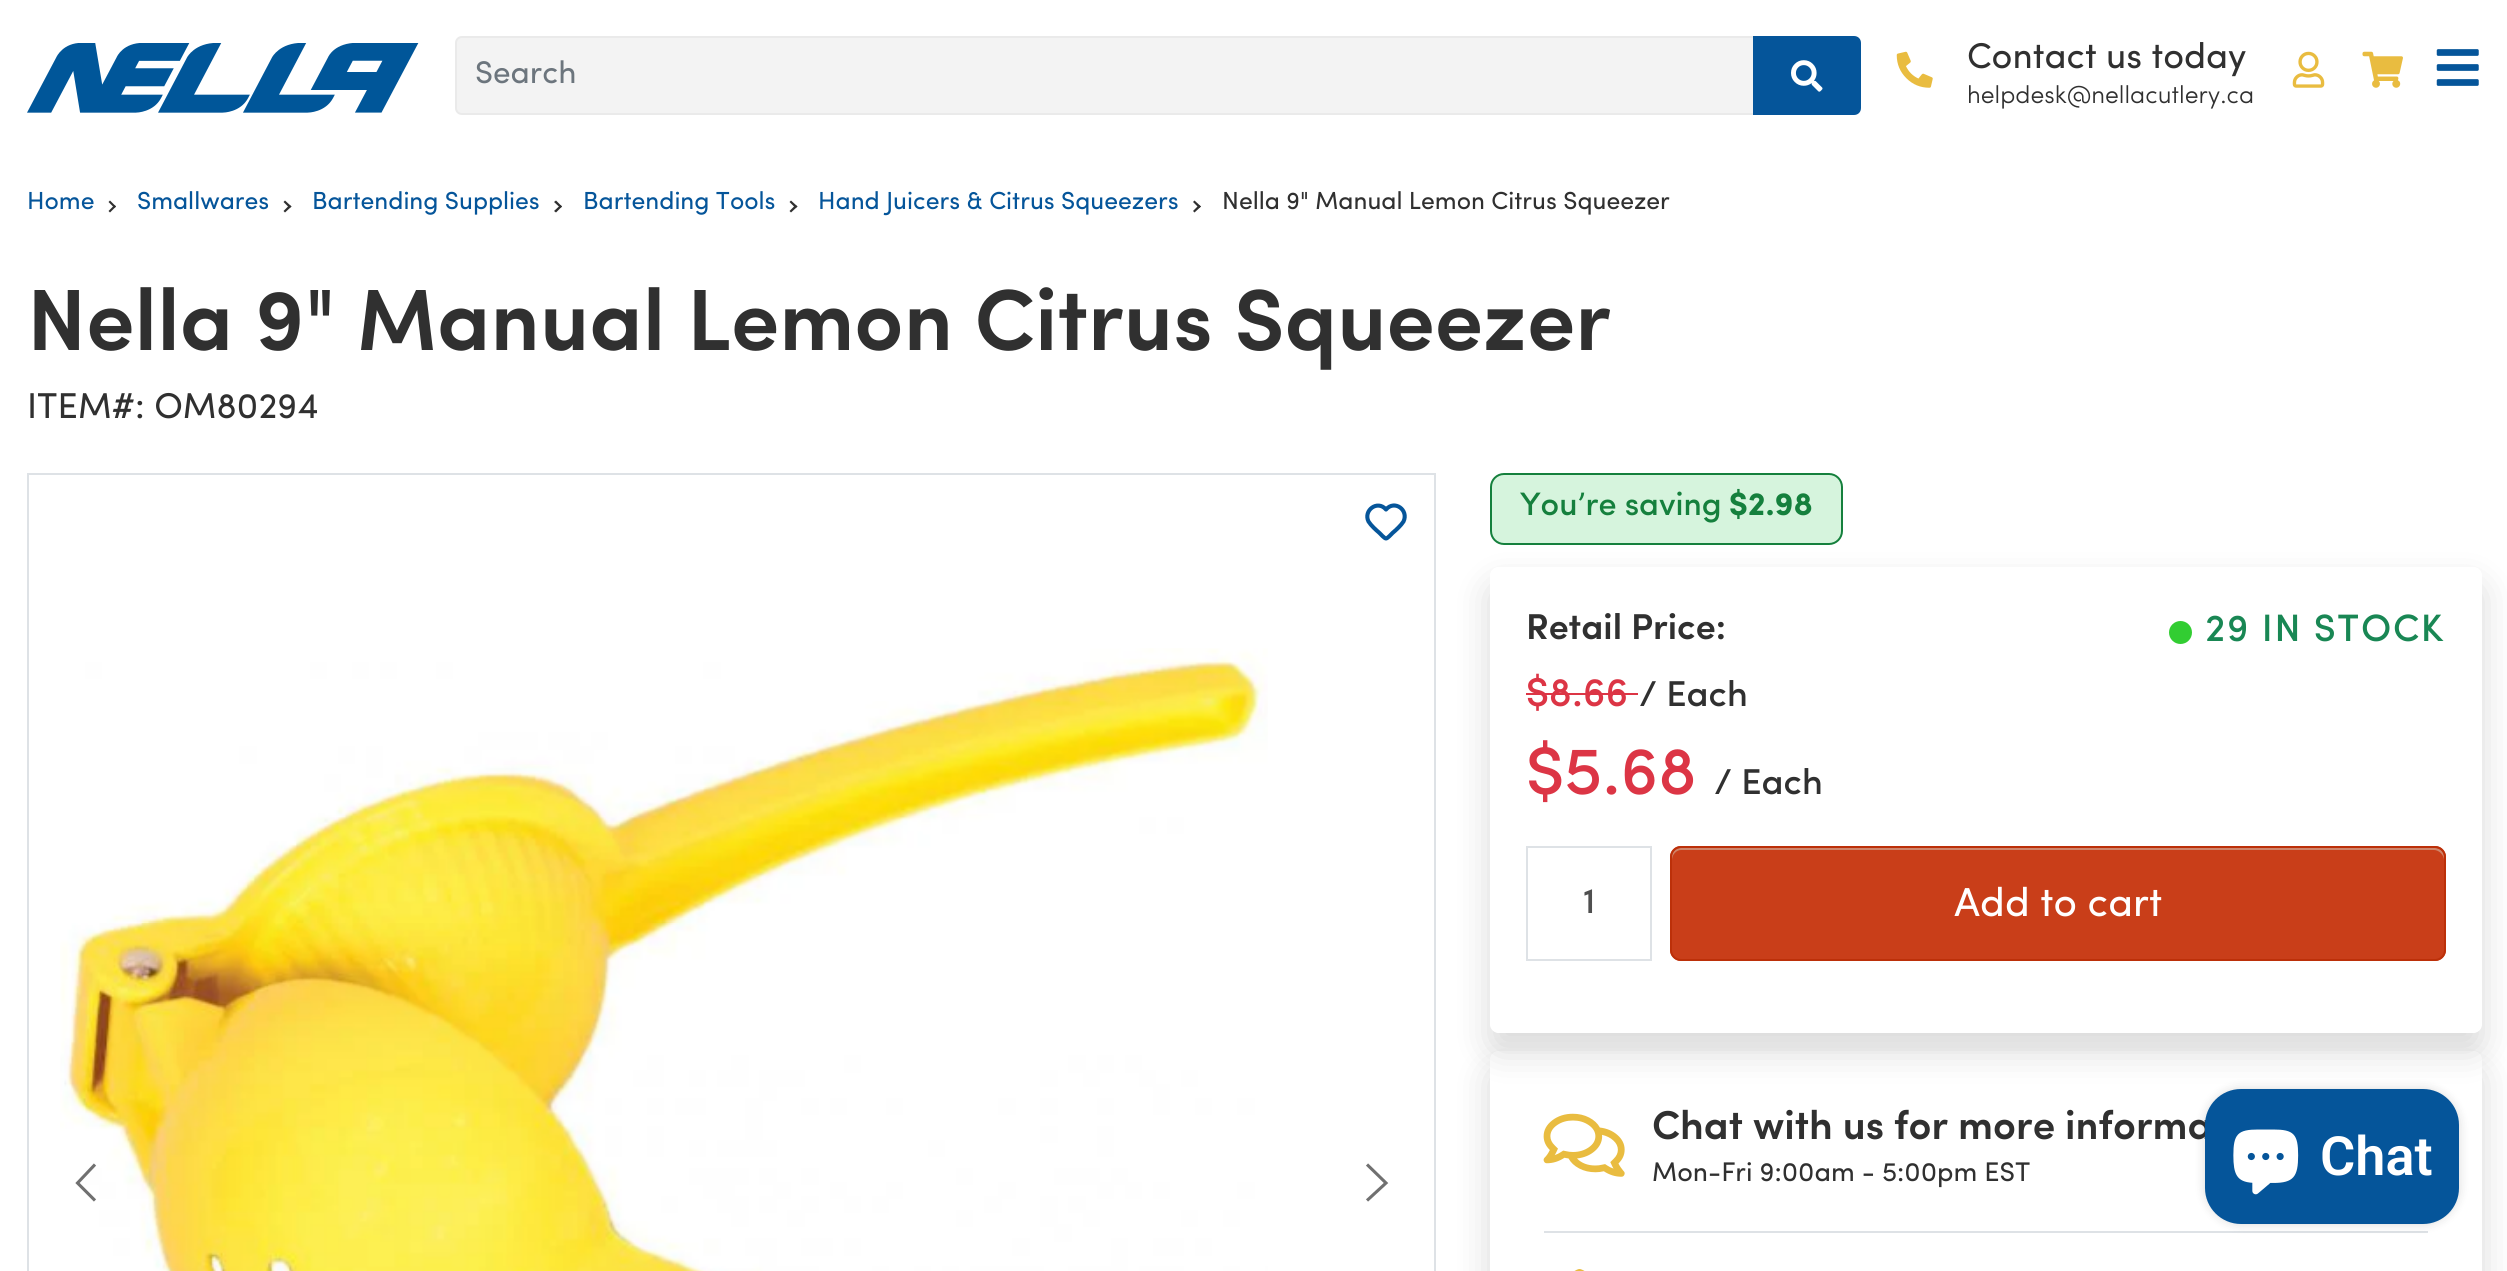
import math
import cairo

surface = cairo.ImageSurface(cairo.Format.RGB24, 2507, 1271)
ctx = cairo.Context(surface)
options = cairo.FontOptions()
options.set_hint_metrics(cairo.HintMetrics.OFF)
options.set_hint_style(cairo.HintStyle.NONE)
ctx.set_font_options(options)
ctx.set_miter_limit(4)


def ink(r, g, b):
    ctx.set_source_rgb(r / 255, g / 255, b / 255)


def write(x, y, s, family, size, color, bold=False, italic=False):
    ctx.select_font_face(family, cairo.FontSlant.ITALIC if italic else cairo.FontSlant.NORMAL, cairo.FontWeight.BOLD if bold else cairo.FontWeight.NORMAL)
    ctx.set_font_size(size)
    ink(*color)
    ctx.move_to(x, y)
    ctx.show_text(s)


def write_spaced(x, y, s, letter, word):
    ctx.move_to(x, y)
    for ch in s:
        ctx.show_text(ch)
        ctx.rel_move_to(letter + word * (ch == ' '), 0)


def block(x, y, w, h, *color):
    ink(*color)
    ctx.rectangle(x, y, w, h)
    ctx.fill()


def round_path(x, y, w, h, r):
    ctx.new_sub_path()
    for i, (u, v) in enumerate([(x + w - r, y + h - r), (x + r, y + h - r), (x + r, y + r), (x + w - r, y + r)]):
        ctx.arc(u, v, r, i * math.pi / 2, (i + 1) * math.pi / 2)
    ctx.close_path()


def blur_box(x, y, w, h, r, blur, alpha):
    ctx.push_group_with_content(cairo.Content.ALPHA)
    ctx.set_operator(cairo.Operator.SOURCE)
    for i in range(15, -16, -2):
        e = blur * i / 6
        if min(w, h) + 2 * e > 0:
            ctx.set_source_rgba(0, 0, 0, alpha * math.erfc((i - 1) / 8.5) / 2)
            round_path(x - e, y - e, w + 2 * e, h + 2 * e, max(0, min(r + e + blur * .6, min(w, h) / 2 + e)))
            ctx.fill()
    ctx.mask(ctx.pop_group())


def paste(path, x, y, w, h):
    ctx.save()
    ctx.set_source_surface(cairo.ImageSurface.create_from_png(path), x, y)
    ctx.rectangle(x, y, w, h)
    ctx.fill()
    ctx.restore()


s1 = dict(family="Sofia", size=31.5, color=(108, 117, 125))
s2 = dict(family="Sofia", size=36, color=(48, 48, 48))
s3 = dict(family="Sofia Light", size=24.75, color=(48, 48, 48))
s4 = dict(family="Sofia", size=24.75, color=(5, 85, 154))
s5 = dict(family="Sofia", size=24.75, color=(48, 48, 48))
s6 = dict(family="Sofia SemiBold", size=87.1, color=(48, 48, 48))
s7 = dict(family="Sofia Medium", size=32.5, color=(21, 128, 61))
s8 = dict(family="Sofia", size=32.5, color=(21, 128, 61), bold=True)
s9 = dict(family="Sofia SemiBold", size=36, color=(48, 48, 48))
s10 = dict(family="Sofia Medium", size=40.5, color=(220, 53, 69))
s11 = dict(family="Sofia Medium", size=36, color=(48, 48, 48))
s12 = dict(family="Sofia Medium", size=67.5, color=(220, 53, 69))
s13 = dict(family="Sofia Medium", size=36, color=(79, 79, 79))
s14 = dict(family="Sofia", size=40.5, color=(255, 255, 255))
s15 = dict(family="Sofia SemiBold", size=40.5, color=(48, 48, 48))
s16 = dict(family="Sofia", size=27, color=(48, 48, 48))
s17 = dict(family="Roboto SemiBold", size=54, color=(255, 255, 255))

ink(255, 255, 255)
ctx.paint()
paste("pic1.png", 27, 43, 392, 70)
ink(243, 243, 243)
ctx.new_path()
ctx.move_to(462, 37)
ctx.line_to(1754, 37)
ctx.line_to(1754, 114)
ctx.line_to(462, 114)
ctx.curve_to(458.5, 114, 456, 111.5, 456, 108)
ctx.line_to(456, 43)
ctx.curve_to(456, 39.5, 458.5, 37, 462, 37)
ctx.close_path()
ctx.fill_preserve()
ink(234, 234, 234)
ctx.stroke()
write(475, 83, "Search", **s1)
ink(5, 85, 154)
ctx.new_path()
ctx.move_to(1754, 37)
ctx.line_to(1854, 37)
ctx.curve_to(1857.5, 37, 1860, 39.5, 1860, 43)
ctx.line_to(1860, 108)
ctx.curve_to(1860, 111.5, 1857.5, 114, 1854, 114)
ctx.line_to(1754, 114)
ctx.close_path()
ctx.fill_preserve()
ctx.stroke()
paste("pic2.png", 1791, 60, 32, 32)
paste("pic3.png", 1896, 51, 37, 37)
write(1967, 68, "Contact us today", **s2)
write(1967, 103, "helpdesk@nellacutlery.ca", **s3)
paste("pic4.png", 2292, 51, 33, 37)
paste("pic5.png", 2362, 51, 41, 37)
paste("pic6.png", 2436, 49, 43, 37)
write(27, 209, "Home", **s4)
ink(48, 48, 48)
ctx.new_path()
ctx.move_to(110, 200.5)
ctx.line_to(116, 206.5)
ctx.line_to(114.5, 208)
ctx.line_to(108.5, 202)
ctx.close_path()
ctx.fill()
ctx.new_path()
ctx.move_to(114.5, 205)
ctx.line_to(116, 206.5)
ctx.line_to(110, 212.5)
ctx.line_to(108.5, 211)
ctx.close_path()
ctx.fill()
write(137, 209, "Smallwares", **s4)
ink(48, 48, 48)
ctx.new_path()
ctx.move_to(285, 200.5)
ctx.line_to(291.5, 206.5)
ctx.line_to(289.5, 208)
ctx.line_to(283.5, 202)
ctx.close_path()
ctx.fill()
ctx.new_path()
ctx.move_to(289.5, 205)
ctx.line_to(291.5, 206.5)
ctx.line_to(285, 212.5)
ctx.line_to(283.5, 211)
ctx.close_path()
ctx.fill()
write(312, 209, "Bartending Supplies", **s4)
ink(48, 48, 48)
ctx.new_path()
ctx.move_to(556, 200.5)
ctx.line_to(562, 206.5)
ctx.line_to(560.5, 208)
ctx.line_to(554, 202)
ctx.close_path()
ctx.fill()
ctx.new_path()
ctx.move_to(560.5, 205)
ctx.line_to(562, 206.5)
ctx.line_to(556, 212.5)
ctx.line_to(554, 211)
ctx.close_path()
ctx.fill()
write(583, 209, "Bartending Tools", **s4)
ink(48, 48, 48)
ctx.new_path()
ctx.move_to(791, 200.5)
ctx.line_to(797.5, 206.5)
ctx.line_to(795.5, 208)
ctx.line_to(789.5, 202)
ctx.close_path()
ctx.fill()
ctx.new_path()
ctx.move_to(795.5, 205)
ctx.line_to(797.5, 206.5)
ctx.line_to(791, 212.5)
ctx.line_to(789.5, 211)
ctx.close_path()
ctx.fill()
write(818, 209, "Hand Juicers & Citrus Squeezers", **s4)
ink(48, 48, 48)
ctx.new_path()
ctx.move_to(1194.5, 200.5)
ctx.line_to(1201, 206.5)
ctx.line_to(1199, 208)
ctx.line_to(1193, 202)
ctx.close_path()
ctx.fill()
ctx.new_path()
ctx.move_to(1199, 205)
ctx.line_to(1201, 206.5)
ctx.line_to(1194.5, 212.5)
ctx.line_to(1193, 211)
ctx.close_path()
ctx.fill()
write(1222, 209, "Nella 9\" Manual Lemon Citrus Squeezer", **s5)
write(27, 350, "Nella 9\" Manual Lemon Citrus Squeezer", **s6)
write(27, 418, "ITEM#: OM80294", **s2)
ctx.rectangle(28, 474, 1407, 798)
ink(222, 226, 230)
ctx.stroke()
ctx.new_path()
ctx.move_to(1386, 509.5)
ctx.curve_to(1377.5, 499.5, 1363, 510.5, 1368.5, 521.5)
ctx.curve_to(1371, 525.5, 1376, 530, 1379.5, 533)
ctx.curve_to(1380.5, 534, 1384.5, 538.5, 1386, 538.5)
ctx.curve_to(1387.5, 538.5, 1391.5, 534, 1392.5, 533)
ctx.curve_to(1396, 530, 1401, 525.5, 1403.5, 521.5)
ctx.curve_to(1409, 510, 1394.5, 499.5, 1386, 509.5)
ctx.close_path()
ink(5, 85, 154)
ctx.set_line_width(4.1)
ctx.set_line_cap(cairo.LineCap.ROUND)
ctx.set_line_join(cairo.LineJoin.ROUND)
ctx.stroke()
paste("pic7.png", 60, 648, 1208, 623)
ctx.new_path()
ctx.move_to(95, 1164.5)
ctx.line_to(77.5, 1183)
ctx.line_to(95, 1200.5)
ink(112, 112, 112)
ctx.set_line_width(3.1)
ctx.set_line_cap(cairo.LineCap.BUTT)
ctx.set_line_join(cairo.LineJoin.MITER)
ctx.stroke()
ctx.new_path()
ctx.move_to(1367, 1164.5)
ctx.line_to(1386, 1183)
ctx.line_to(1367, 1200.5)
ctx.stroke()
ink(214, 244, 221)
round_path(1491, 474, 351, 70, 13)
ctx.fill_preserve()
ink(21, 128, 61)
ctx.set_line_width(2)
ctx.stroke()
write(1520, 515, "You’re saving", **s7)
write(1729, 515, "$2.98", **s8)
ctx.save()
ctx.set_fill_rule(cairo.FillRule.EVEN_ODD)
ctx.new_path()
ctx.move_to(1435, 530)
ctx.line_to(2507, 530)
ctx.line_to(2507, 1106)
ctx.line_to(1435, 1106)
ctx.close_path()
ctx.move_to(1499, 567)
ctx.line_to(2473, 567)
ctx.curve_to(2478, 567, 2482, 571, 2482, 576)
ctx.line_to(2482, 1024)
ctx.curve_to(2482, 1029, 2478, 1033, 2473, 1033)
ctx.line_to(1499, 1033)
ctx.curve_to(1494, 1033, 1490, 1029, 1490, 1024)
ctx.line_to(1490, 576)
ctx.curve_to(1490, 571, 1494, 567, 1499, 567)
ctx.close_path()
ctx.clip()
ink(0, 0, 0)
blur_box(1490, 585, 992, 466, 9, 18, 0.15)
ctx.restore()
write(1526, 639, "Retail Price:", **s9)
write(1526, 706, "$8.66", **s10)
write(1639, 706, "/ Each", **s11)
block(1526, 693, 112, 2, 220, 53, 69)
write(1526, 794, "$5.68", **s12)
write(1714, 794, "/ Each", **s11)
ink(50, 205, 50)
ctx.new_path()
ctx.arc(2180.5, 632.5, 11.5, 0, 2 * math.pi)
ctx.fill()
ctx.set_font_size(38.25)
ink(25, 135, 84)
write_spaced(2205, 641, "29 IN STOCK", 1.75, 0)
ctx.rectangle(1527, 847, 124, 113)
ink(222, 226, 230)
ctx.stroke()
write(1583, 913, "1", **s13)
ink(201, 62, 25)
round_path(1670, 846, 776, 115, 11)
ctx.fill()
ink(207, 134, 108)
ctx.new_path()
ctx.move_to(1681, 850)
ctx.line_to(2434, 850)
ctx.curve_to(2439, 850, 2444, 855, 2444, 860)
ctx.line_to(2444, 857)
ctx.curve_to(2444, 852, 2440, 848, 2435, 848)
ctx.line_to(1681, 848)
ctx.curve_to(1676, 848, 1672, 852, 1672, 857)
ctx.line_to(1672, 860)
ctx.curve_to(1672, 855, 1676, 850, 1681, 850)
ctx.close_path()
ctx.fill()
round_path(1671, 847, 774, 113, 10)
ink(188, 48, 9)
ctx.stroke()
write(1954, 916, "Add to cart", **s14)
ctx.save()
ctx.set_fill_rule(cairo.FillRule.EVEN_ODD)
ctx.new_path()
ctx.move_to(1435, 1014)
ctx.line_to(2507, 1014)
ctx.line_to(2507, 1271)
ctx.line_to(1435, 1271)
ctx.close_path()
ctx.move_to(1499, 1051)
ctx.line_to(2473, 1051)
ctx.curve_to(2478, 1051, 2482, 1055, 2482, 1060)
ctx.line_to(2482, 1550)
ctx.curve_to(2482, 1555, 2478, 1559, 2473, 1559)
ctx.line_to(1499, 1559)
ctx.curve_to(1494, 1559, 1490, 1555, 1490, 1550)
ctx.line_to(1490, 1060)
ctx.curve_to(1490, 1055, 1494, 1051, 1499, 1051)
ctx.close_path()
ctx.clip()
ink(0, 0, 0)
blur_box(1490, 1069, 992, 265, 9, 18, 0.15)
ctx.restore()
block(1544, 1231, 884, 2, 222, 226, 230)
paste("pic8.png", 1543, 1113, 82, 64)
write(1652, 1139, "Chat with us for more informa", **s15)
write(1652, 1181, "Mon-Fri 9:00am - 5:00pm EST", **s16)
paste("pic9.png", 1574, 1269, 11, 2)
ink(0, 0, 0)
blur_box(2205, 1089, 254, 135, 36, 5.5, 0.15)
ink(5, 85, 154)
round_path(2205, 1089, 254, 135, 36)
ctx.fill()
paste("pic10.png", 2233, 1129, 66, 66)
write(2320, 1175, "Chat", **s17)
surface.write_to_png("screenshot.png")
